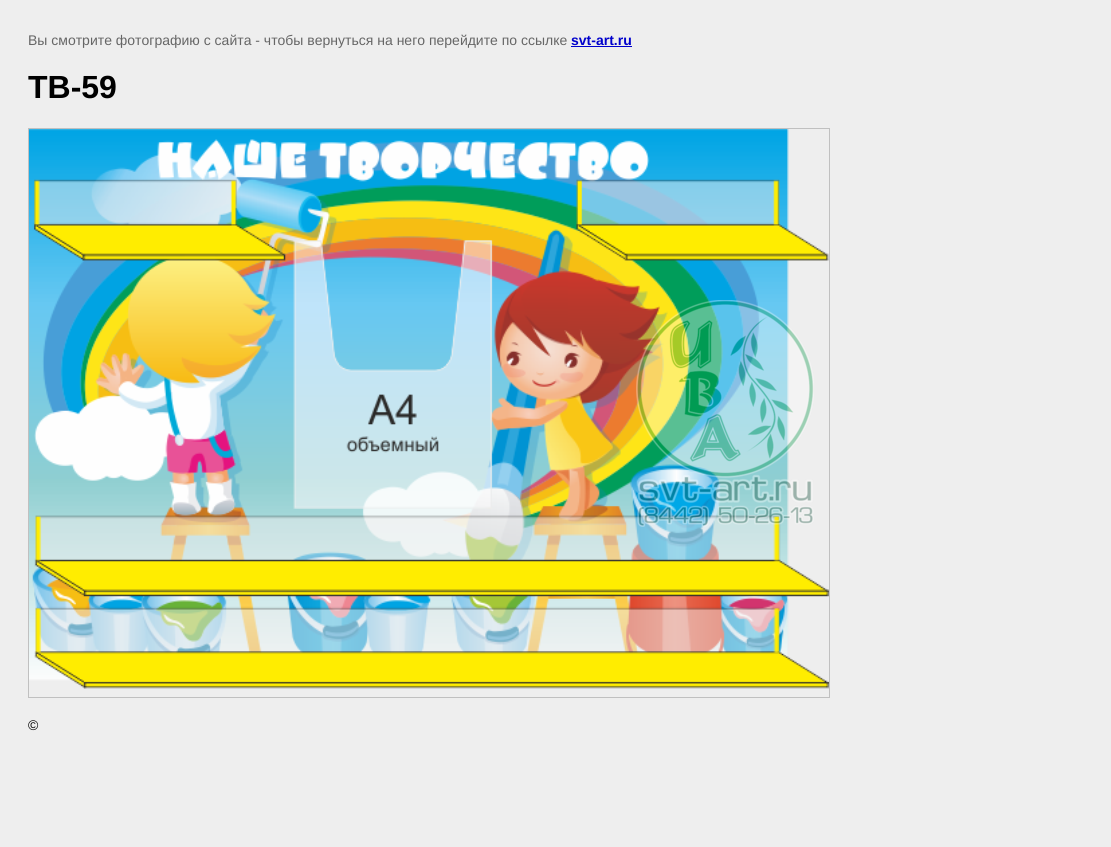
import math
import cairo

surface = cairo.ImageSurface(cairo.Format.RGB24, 1111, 847)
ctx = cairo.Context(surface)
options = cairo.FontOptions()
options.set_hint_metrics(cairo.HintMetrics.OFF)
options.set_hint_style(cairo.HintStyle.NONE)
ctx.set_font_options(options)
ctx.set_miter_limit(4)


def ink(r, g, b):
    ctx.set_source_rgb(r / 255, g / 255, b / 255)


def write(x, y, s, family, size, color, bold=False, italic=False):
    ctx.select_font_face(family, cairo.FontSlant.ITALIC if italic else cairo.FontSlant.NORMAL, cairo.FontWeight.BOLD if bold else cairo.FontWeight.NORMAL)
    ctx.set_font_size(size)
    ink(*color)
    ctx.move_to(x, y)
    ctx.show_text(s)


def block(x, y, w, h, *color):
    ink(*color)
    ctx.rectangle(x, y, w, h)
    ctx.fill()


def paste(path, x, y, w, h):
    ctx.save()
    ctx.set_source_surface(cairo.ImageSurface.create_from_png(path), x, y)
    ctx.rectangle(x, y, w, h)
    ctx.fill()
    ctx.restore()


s1 = dict(family="Liberation Sans", size=14, color=(102, 102, 102))
s2 = dict(family="Liberation Sans", size=14, color=(0, 0, 204), bold=True)
s3 = dict(family="Liberation Sans", size=32, color=(0, 0, 0), bold=True)
s4 = dict(family="Liberation Sans", size=14, color=(0, 0, 0))

ink(238, 238, 238)
ctx.paint()
write(28, 45, "Вы смотрите фотографию с сайта - чтобы вернуться на него перейдите по ссылке", **s1)
write(571, 45, "svt-art.ru", **s2)
block(571, 46, 61, 1, 0, 0, 204)
write(28, 98, "ТВ-59", **s3)
ctx.rectangle(28.5, 128.5, 801, 569)
ink(192, 192, 192)
ctx.set_line_width(1)
ctx.stroke()
paste("pic1.png", 29, 129, 800, 560)
write(28, 730, "©", **s4)
surface.write_to_png("screenshot.png")
